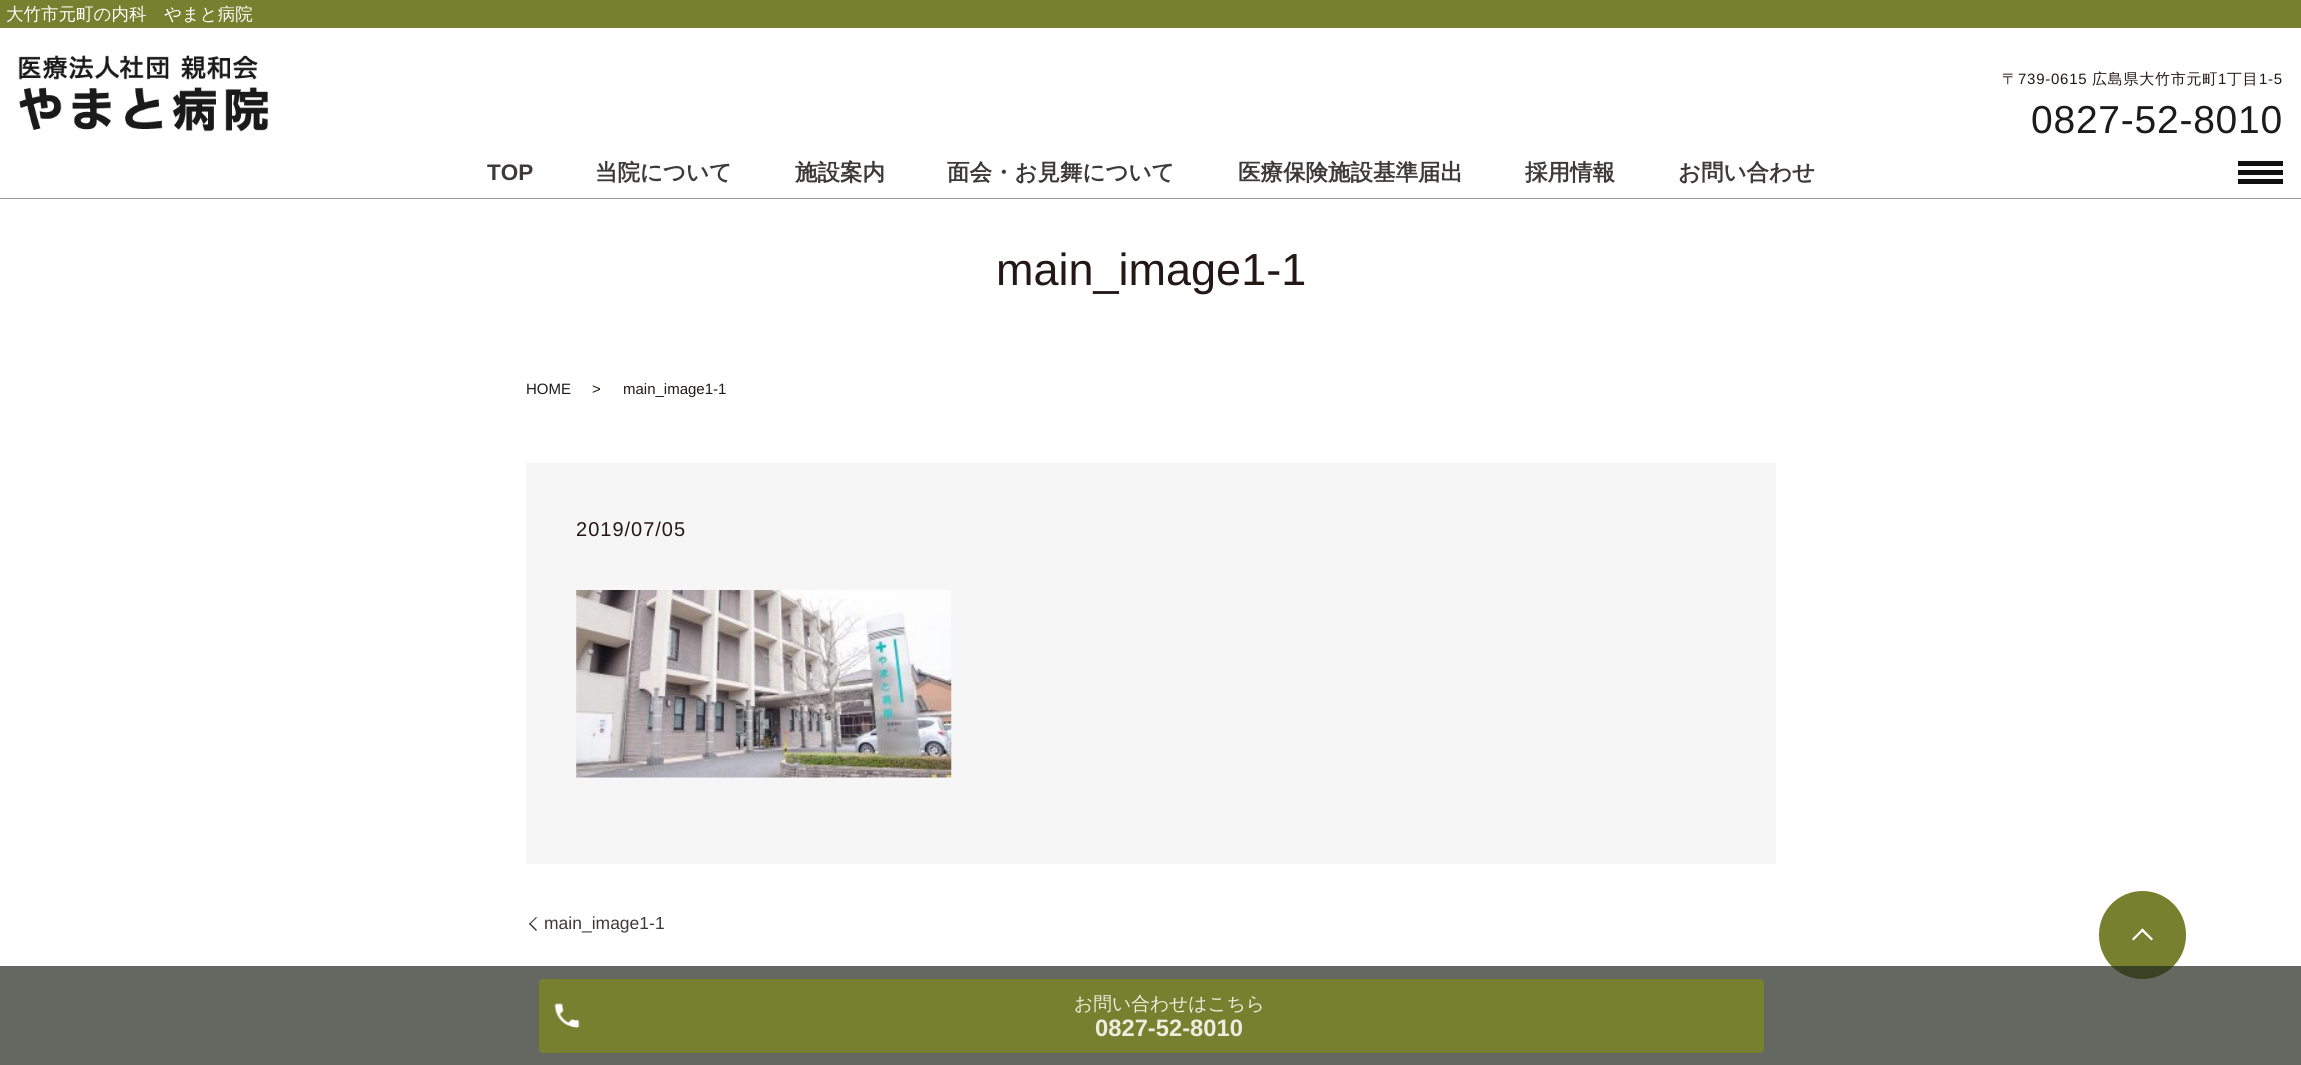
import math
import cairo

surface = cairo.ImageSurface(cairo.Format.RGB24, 2301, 1065)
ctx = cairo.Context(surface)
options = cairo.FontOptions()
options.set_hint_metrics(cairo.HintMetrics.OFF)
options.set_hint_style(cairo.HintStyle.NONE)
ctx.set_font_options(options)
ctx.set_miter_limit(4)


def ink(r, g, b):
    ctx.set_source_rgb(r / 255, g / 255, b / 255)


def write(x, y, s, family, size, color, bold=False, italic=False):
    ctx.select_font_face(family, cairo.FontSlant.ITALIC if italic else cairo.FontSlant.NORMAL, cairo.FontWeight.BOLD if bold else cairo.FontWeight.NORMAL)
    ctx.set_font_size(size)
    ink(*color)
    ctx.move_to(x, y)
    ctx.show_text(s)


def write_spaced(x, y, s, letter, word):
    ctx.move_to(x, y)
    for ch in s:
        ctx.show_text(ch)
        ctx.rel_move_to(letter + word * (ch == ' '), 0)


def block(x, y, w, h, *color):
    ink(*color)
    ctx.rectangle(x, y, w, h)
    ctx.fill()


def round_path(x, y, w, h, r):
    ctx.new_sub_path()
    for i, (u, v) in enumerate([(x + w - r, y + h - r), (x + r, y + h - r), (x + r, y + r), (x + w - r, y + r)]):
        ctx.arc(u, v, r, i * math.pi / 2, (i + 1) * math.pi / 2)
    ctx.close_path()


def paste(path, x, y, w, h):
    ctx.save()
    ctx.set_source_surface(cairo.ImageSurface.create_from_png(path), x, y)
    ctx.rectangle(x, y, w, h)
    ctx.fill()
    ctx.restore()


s1 = dict(family="WenQuanYi Zen Hei Medium", size=17.5, color=(255, 255, 255))
s2 = dict(family="Liberation Sans", size=22.5, color=(62, 58, 57), bold=True)
s3 = dict(family="WenQuanYi Zen Hei", size=22.5, color=(62, 58, 57), bold=True)
s4 = dict(family="Liberation Sans", size=45, color=(35, 24, 21))
s5 = dict(family="Liberation Sans", size=15, color=(27, 27, 27))
s6 = dict(family="Liberation Sans", size=15, color=(35, 24, 21))
s7 = dict(family="Liberation Sans", size=17.5, color=(62, 58, 57))
s8 = dict(family="WenQuanYi Zen Hei Medium", size=18.75, color=(235, 237, 223))
s9 = dict(family="Liberation Sans", size=23.75, color=(235, 237, 223), bold=True)

ink(255, 255, 255)
ctx.paint()
block(0, 198, 2301, 1, 153, 153, 153)
block(0, 0, 2301, 28, 119, 128, 47)
write(6, 20, "大竹市元町の内科　やまと病院", **s1)
paste("pic1.png", 18, 55, 250, 77)
ctx.set_font_size(15)
ink(35, 24, 21)
write_spaced(2002, 84, "〒", 0.75, 0)
ctx.select_font_face("Liberation Sans")
write_spaced(2018, 84, "739-0615", 0.75, 0)
ctx.select_font_face("WenQuanYi Zen Hei Medium")
write_spaced(2092, 84, "広島県大竹市元町", 0.75, 0)
ctx.select_font_face("Liberation Sans")
write_spaced(2218, 84, "1", 0.75, 0)
ctx.select_font_face("WenQuanYi Zen Hei Medium")
write_spaced(2227, 84, "丁目", 0.75, 0)
ctx.select_font_face("Liberation Sans")
write_spaced(2259, 84, "1-5", 0.75, 0)
ctx.set_font_size(39)
ink(27, 27, 27)
write_spaced(2031, 133, "0827-52-8010", 0.75, 0)
write(487, 180, "TOP", **s2)
write(595, 180, "当院について", **s3)
write(795, 180, "施設案内", **s3)
write(947, 180, "面会・お見舞について", **s3)
write(1238, 180, "医療保険施設基準届出", **s3)
write(1525, 180, "採用情報", **s3)
write(1678, 180, "お問い合わせ", **s3)
block(2238, 161, 45, 5, 16, 16, 16)
block(2238, 179, 45, 5, 16, 16, 16)
block(2238, 170, 45, 5, 16, 16, 16)
write(996, 285, "main_image1-1", **s4)
write(526, 394, "HOME", **s5)
write(592, 394, ">", **s6)
write(623, 394, "main_image1-1", **s6)
block(526, 463, 1250, 401, 246, 246, 246)
ctx.set_font_size(20)
ink(35, 24, 21)
write_spaced(576, 536, "2019/07/05", 1, 0)
paste("pic2.png", 576, 590, 376, 188)
ink(56, 54, 55)
ctx.new_path()
ctx.move_to(529, 924)
ctx.line_to(536, 917)
ctx.line_to(537, 917.5)
ctx.line_to(530, 924.5)
ctx.close_path()
ctx.fill()
write(544, 929, "main_image1-1", **s7)
ink(56, 54, 55)
ctx.new_path()
ctx.move_to(536, 931)
ctx.line_to(529, 924)
ctx.line_to(530, 923)
ctx.line_to(537, 930)
ctx.close_path()
ctx.fill()
ink(119, 128, 47)
round_path(2099, 891, 87, 88, 43.5)
ctx.fill()
ink(255, 255, 255)
ctx.new_path()
ctx.move_to(2142.5, 928.5)
ctx.line_to(2153, 939)
ctx.line_to(2151.5, 940.5)
ctx.line_to(2140.5, 930)
ctx.close_path()
ctx.fill()
ctx.new_path()
ctx.move_to(2142.5, 928.5)
ctx.line_to(2144, 930)
ctx.line_to(2133.5, 940.5)
ctx.line_to(2132, 939)
ctx.close_path()
ctx.fill()
ctx.set_source_rgba(0.137, 0.157, 0.118, 0.7)
ctx.rectangle(0, 966, 2301, 99)
ctx.fill()
ink(119, 128, 47)
round_path(539, 979, 1225, 74, 4)
ctx.fill()
paste("pic3.png", 554, 1003, 26, 25)
write(1074, 1010, "お問い合わせはこちら", **s8)
write(1095, 1036, "0827-52-8010", **s9)
surface.write_to_png("screenshot.png")
